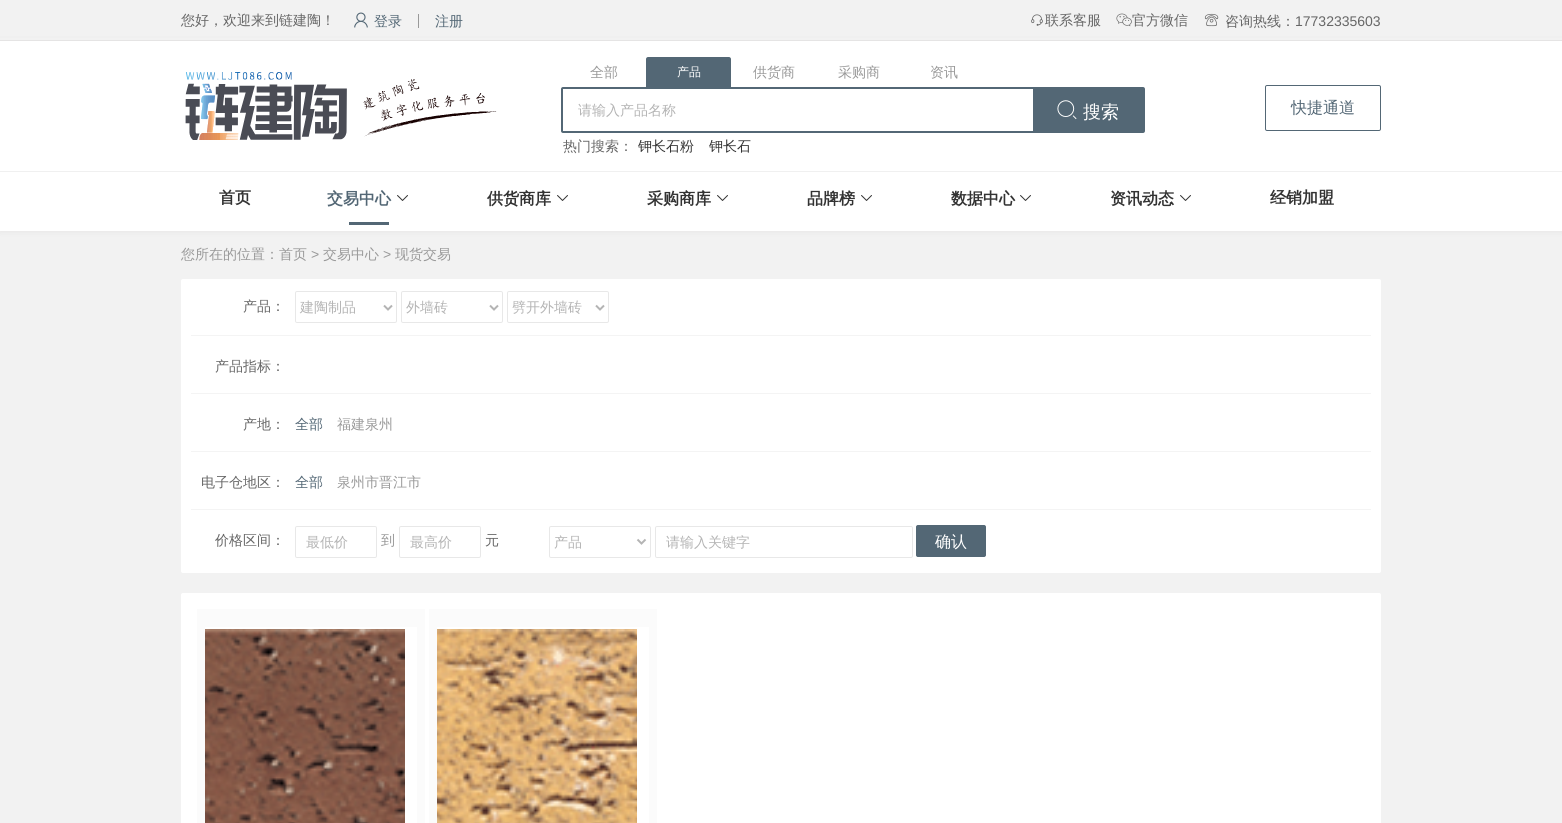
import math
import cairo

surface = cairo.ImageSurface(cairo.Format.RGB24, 1562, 823)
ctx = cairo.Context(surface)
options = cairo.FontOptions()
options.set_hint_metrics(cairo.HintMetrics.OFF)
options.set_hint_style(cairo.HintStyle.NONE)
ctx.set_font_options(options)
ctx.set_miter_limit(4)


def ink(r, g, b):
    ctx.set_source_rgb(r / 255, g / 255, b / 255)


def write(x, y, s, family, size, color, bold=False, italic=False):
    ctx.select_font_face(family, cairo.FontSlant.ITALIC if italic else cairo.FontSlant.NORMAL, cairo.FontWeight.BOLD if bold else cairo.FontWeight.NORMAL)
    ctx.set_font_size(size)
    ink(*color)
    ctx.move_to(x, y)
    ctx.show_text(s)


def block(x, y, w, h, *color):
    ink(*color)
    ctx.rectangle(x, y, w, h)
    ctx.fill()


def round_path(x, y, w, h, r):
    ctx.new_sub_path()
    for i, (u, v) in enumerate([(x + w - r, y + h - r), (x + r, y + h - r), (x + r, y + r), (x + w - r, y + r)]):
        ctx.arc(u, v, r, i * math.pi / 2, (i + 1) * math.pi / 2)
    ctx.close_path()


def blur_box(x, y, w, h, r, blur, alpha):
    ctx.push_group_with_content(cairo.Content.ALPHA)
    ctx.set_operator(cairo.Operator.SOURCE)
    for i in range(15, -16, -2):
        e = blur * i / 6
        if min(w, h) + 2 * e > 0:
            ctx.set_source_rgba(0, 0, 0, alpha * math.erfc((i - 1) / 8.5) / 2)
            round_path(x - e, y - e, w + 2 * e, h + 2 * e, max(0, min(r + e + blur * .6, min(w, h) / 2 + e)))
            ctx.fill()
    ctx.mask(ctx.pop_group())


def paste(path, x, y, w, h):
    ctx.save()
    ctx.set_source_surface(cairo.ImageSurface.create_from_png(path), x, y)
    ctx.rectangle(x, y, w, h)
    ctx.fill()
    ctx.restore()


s1 = dict(family="WenQuanYi Zen Hei Medium", size=14, color=(102, 102, 102))
s2 = dict(family="WenQuanYi Zen Hei Medium", size=14, color=(83, 103, 117))
s3 = dict(family="Liberation Sans", size=14, color=(102, 102, 102))
s4 = dict(family="WenQuanYi Zen Hei Medium", size=14, color=(153, 153, 153))
s5 = dict(family="WenQuanYi Zen Hei Medium", size=12, color=(255, 255, 255))
s6 = dict(family="WenQuanYi Zen Hei Medium", size=14, color=(180, 180, 180))
s7 = dict(family="WenQuanYi Zen Hei Medium", size=18, color=(255, 255, 255))
s8 = dict(family="WenQuanYi Zen Hei Medium", size=14, color=(51, 51, 51))
s9 = dict(family="WenQuanYi Zen Hei Medium", size=16, color=(83, 103, 117))
s10 = dict(family="WenQuanYi Zen Hei", size=16, color=(51, 51, 51), bold=True)
s11 = dict(family="WenQuanYi Zen Hei", size=16, color=(83, 103, 117), bold=True)
s12 = dict(family="Liberation Sans", size=14, color=(153, 153, 153))
s13 = dict(family="WenQuanYi Zen Hei Medium", size=16, color=(255, 255, 255))

ink(242, 242, 242)
ctx.paint()
ink(23, 4, 8)
blur_box(-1, 40, 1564, 192, 0, 3, 0.05)
block(0, 38, 1562, 2, 242, 242, 242)
block(0, 40, 1562, 1, 229, 228, 228)
write(181, 25, "您好，欢迎来到链建陶！", **s1)
paste("pic1.png", 354, 12, 14, 16)
write(374, 26, "登录", **s2)
block(418, 14, 1, 14, 153, 153, 153)
write(435, 26, "注册", **s2)
paste("pic2.png", 1031, 14, 12, 12)
write(1045, 25, "联系客服", **s1)
paste("pic3.png", 1116, 13, 16, 14)
write(1132, 25, "官方微信", **s1)
paste("pic4.png", 1204, 13, 15, 14)
write(1225, 26, "咨询热线：", **s1)
write(1295, 26, "17732335603", **s3)
block(0, 41, 1562, 190, 255, 255, 255)
paste("pic5.png", 185, 72, 312, 68)
write(590, 77, "全部", **s4)
ink(83, 103, 117)
ctx.new_path()
ctx.move_to(648, 57)
ctx.line_to(729, 57)
ctx.curve_to(730, 57, 731, 58, 731, 59)
ctx.line_to(731, 87)
ctx.line_to(646, 87)
ctx.line_to(646, 59)
ctx.curve_to(646, 58, 647, 57, 648, 57)
ctx.close_path()
ctx.fill()
write(677, 76, "产品", **s5)
write(753, 77, "供货商", **s4)
write(838, 77, "采购商", **s4)
write(930, 77, "资讯", **s4)
round_path(562, 88, 582, 44, 1)
ink(83, 103, 117)
ctx.stroke()
write(578, 115, "请输入产品名称", **s6)
block(1033, 89, 110, 42, 83, 103, 117)
paste("pic6.png", 1057, 100, 20, 20)
write(1083, 118, "搜索", **s7)
write(563, 151, "热门搜索：", **s1)
write(638, 151, "钾长石粉", **s8)
write(709, 151, "钾长石", **s8)
round_path(1265.5, 85.5, 115, 45, 1.5)
ink(83, 103, 117)
ctx.set_line_width(1)
ctx.stroke()
write(1291, 113, "快捷通道", **s9)
block(0, 171, 1562, 1, 240, 240, 240)
write(219, 203, "首页", **s10)
write(327, 204, "交易中心", **s11)
paste("pic7.png", 397, 195, 11, 6)
block(349, 222, 40, 3, 83, 103, 117)
write(487, 204, "供货商库", **s10)
paste("pic7.png", 557, 195, 11, 6)
write(647, 204, "采购商库", **s10)
paste("pic7.png", 717, 195, 11, 6)
write(807, 204, "品牌榜", **s10)
paste("pic7.png", 861, 195, 11, 6)
write(951, 204, "数据中心", **s10)
paste("pic7.png", 1020, 195, 11, 6)
write(1110, 204, "资讯动态", **s10)
paste("pic7.png", 1180, 195, 11, 6)
write(1270, 203, "经销加盟", **s10)
write(181, 259, "您所在的位置：首页", **s4)
write(311, 259, ">", **s12)
write(323, 259, "交易中心", **s4)
write(383, 259, ">", **s12)
write(395, 259, "现货交易", **s4)
ink(255, 255, 255)
round_path(181, 279, 1200, 294, 2)
ctx.fill()
block(191, 335, 1180, 1, 244, 244, 244)
write(243, 311, "产品：", **s1)
round_path(295.5, 291.5, 101, 31, 1.5)
ink(232, 232, 232)
ctx.stroke()
ctx.new_path()
ctx.move_to(384, 305.5)
ctx.line_to(388, 309.5)
ctx.line_to(392, 305.5)
ink(180, 180, 180)
ctx.set_line_width(2)
ctx.stroke()
write(300, 312, "建陶制品", **s6)
round_path(401.5, 291.5, 101, 31, 1.5)
ink(232, 232, 232)
ctx.set_line_width(1)
ctx.stroke()
ctx.new_path()
ctx.move_to(490, 305.5)
ctx.line_to(494, 309.5)
ctx.line_to(498, 305.5)
ink(180, 180, 180)
ctx.set_line_width(2)
ctx.stroke()
write(406, 312, "外墙砖", **s6)
round_path(507.5, 291.5, 101, 31, 1.5)
ink(232, 232, 232)
ctx.set_line_width(1)
ctx.stroke()
ctx.new_path()
ctx.move_to(596, 305.5)
ctx.line_to(600, 309.5)
ctx.line_to(604, 305.5)
ink(180, 180, 180)
ctx.set_line_width(2)
ctx.stroke()
write(512, 312, "劈开外墙砖", **s6)
block(191, 393, 1180, 1, 244, 244, 244)
write(215, 371, "产品指标：", **s1)
block(191, 451, 1180, 1, 244, 244, 244)
write(243, 429, "产地：", **s1)
write(295, 429, "全部", **s2)
write(337, 429, "福建泉州", **s4)
block(191, 509, 1180, 1, 244, 244, 244)
write(201, 487, "电子仓地区：", **s1)
write(295, 487, "全部", **s2)
write(337, 487, "泉州市晋江市", **s4)
write(215, 545, "价格区间：", **s1)
round_path(295.5, 526.5, 81, 31, 1.5)
ink(232, 232, 232)
ctx.set_line_width(1)
ctx.stroke()
write(306, 547, "最低价", **s6)
write(381, 545, "到", **s4)
round_path(399.5, 526.5, 81, 31, 1.5)
ink(232, 232, 232)
ctx.stroke()
write(410, 547, "最高价", **s6)
write(485, 545, "元", **s1)
round_path(549.5, 526.5, 101, 31, 1.5)
ink(232, 232, 232)
ctx.stroke()
ctx.new_path()
ctx.move_to(637.5, 539.5)
ctx.line_to(641.5, 543.5)
ctx.line_to(645.5, 539.5)
ink(180, 180, 180)
ctx.set_line_width(2)
ctx.stroke()
write(554, 547, "产品", **s6)
round_path(655.5, 526.5, 257, 31, 1.5)
ink(232, 232, 232)
ctx.set_line_width(1)
ctx.stroke()
write(666, 547, "请输入关键字", **s6)
ink(83, 103, 117)
round_path(916.5, 525.5, 69, 31, 1.5)
ctx.fill_preserve()
ctx.stroke()
write(935, 547, "确认", **s13)
round_path(181, 593, 1200, 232, 2)
ctx.fill()
block(197, 609, 228, 214, 251, 251, 251)
block(205, 627, 212, 196, 255, 255, 255)
paste("pic8.png", 205, 629, 200, 194)
block(429, 609, 228, 214, 251, 251, 251)
block(437, 627, 212, 196, 255, 255, 255)
paste("pic9.png", 437, 629, 200, 194)
surface.write_to_png("screenshot.png")
